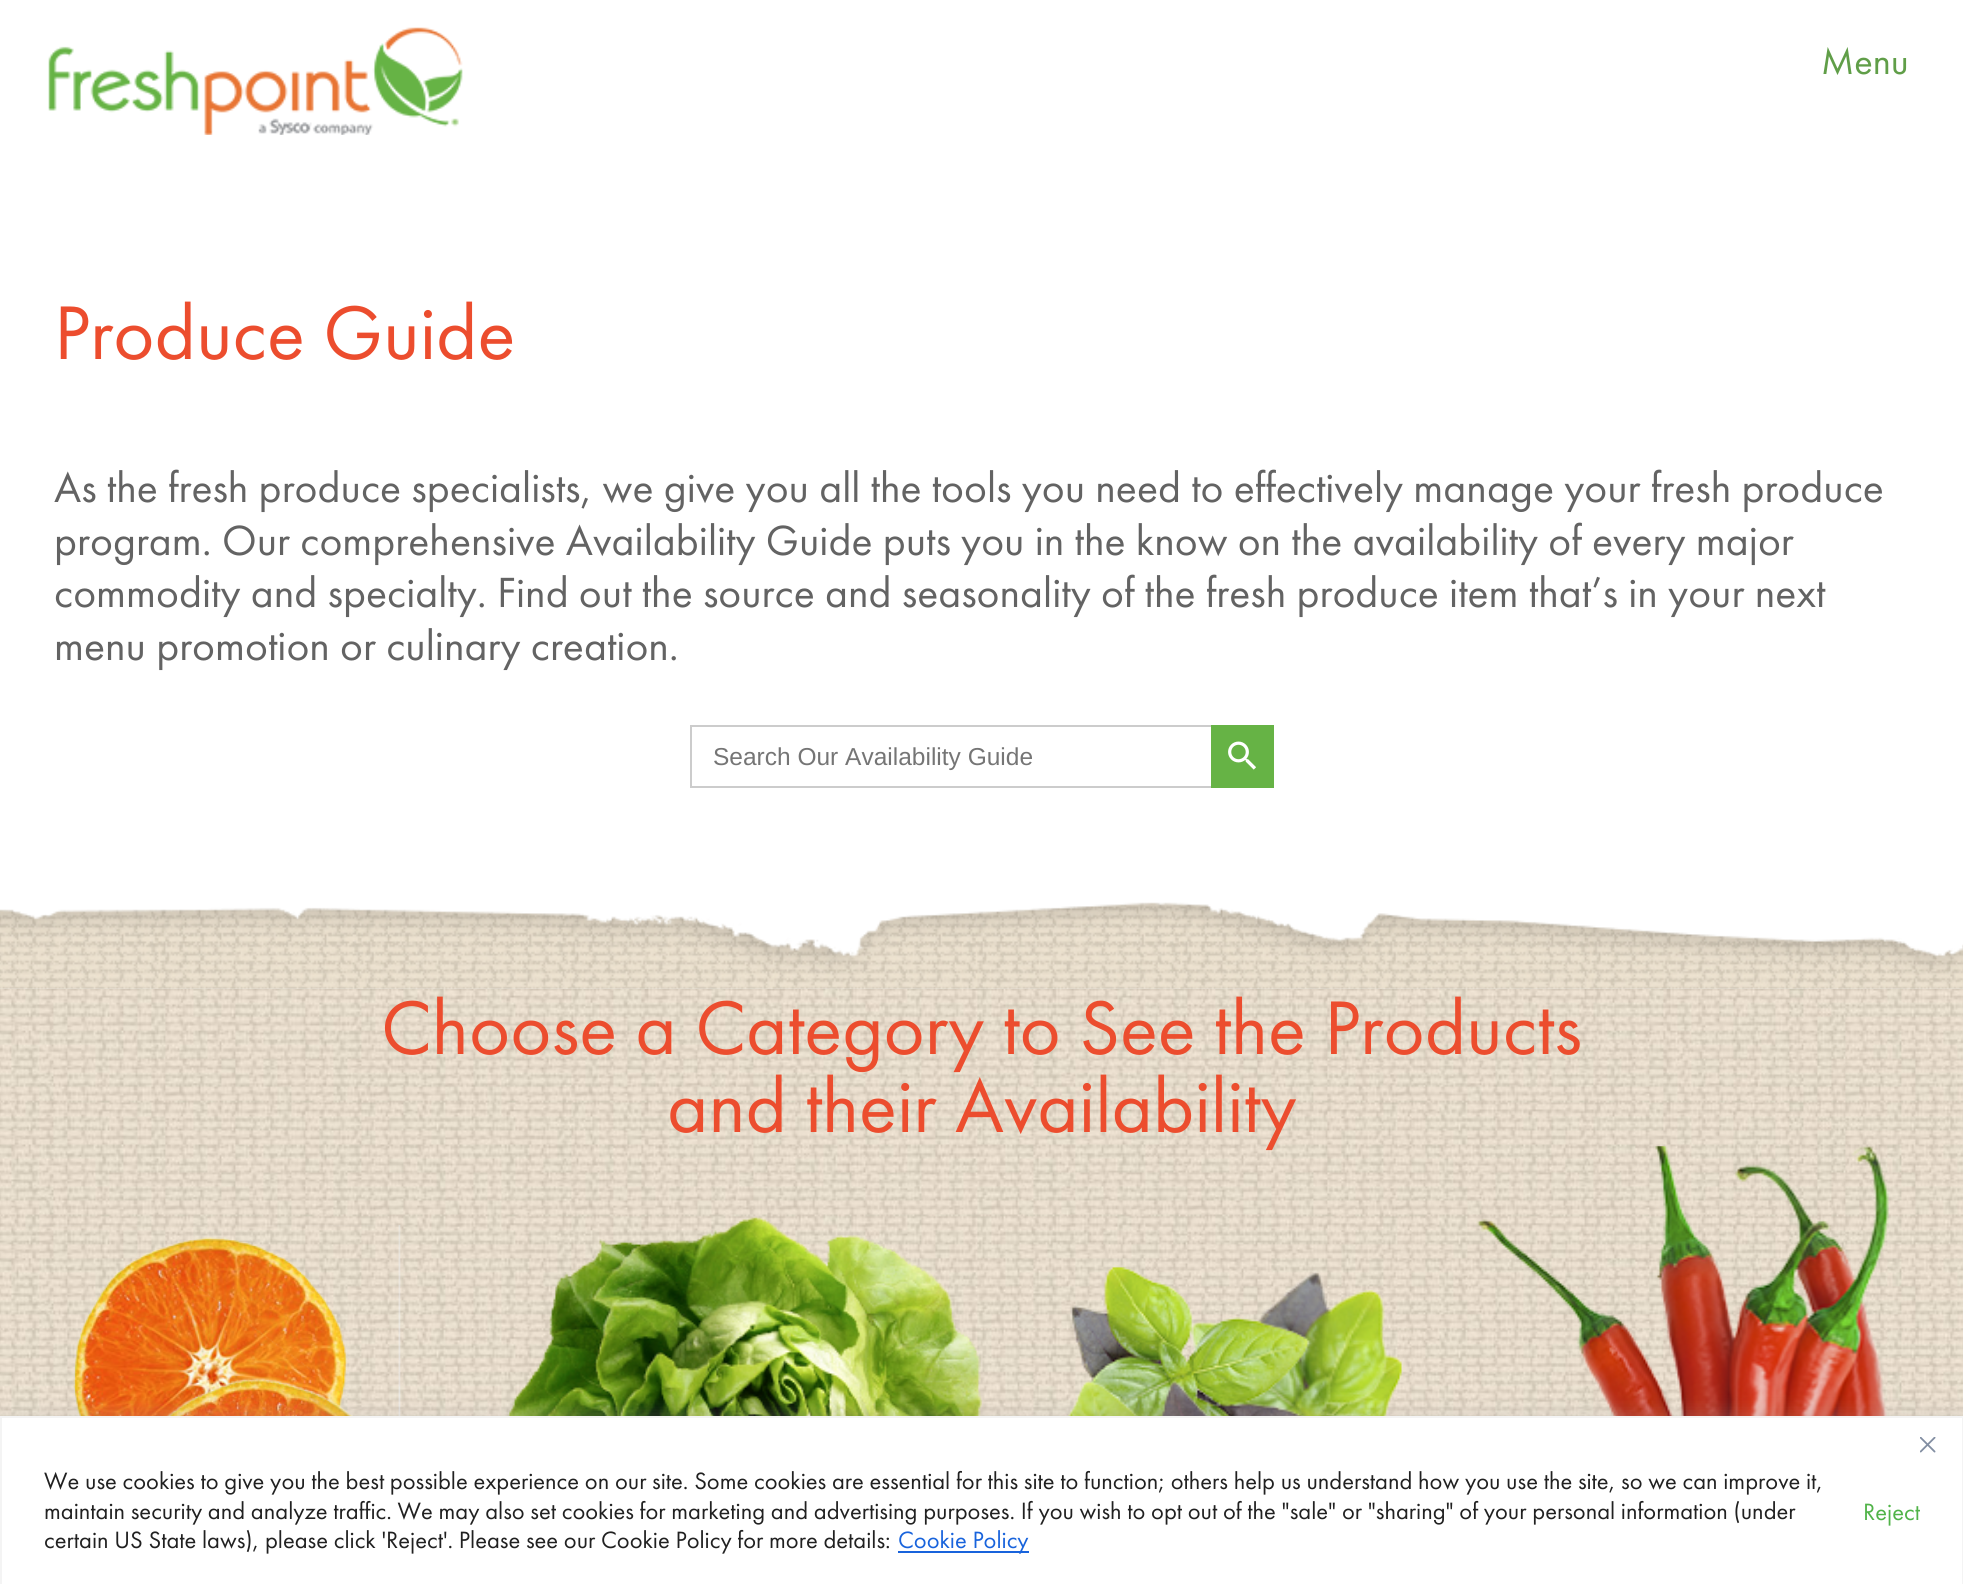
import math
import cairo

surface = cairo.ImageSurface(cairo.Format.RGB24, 1963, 1584)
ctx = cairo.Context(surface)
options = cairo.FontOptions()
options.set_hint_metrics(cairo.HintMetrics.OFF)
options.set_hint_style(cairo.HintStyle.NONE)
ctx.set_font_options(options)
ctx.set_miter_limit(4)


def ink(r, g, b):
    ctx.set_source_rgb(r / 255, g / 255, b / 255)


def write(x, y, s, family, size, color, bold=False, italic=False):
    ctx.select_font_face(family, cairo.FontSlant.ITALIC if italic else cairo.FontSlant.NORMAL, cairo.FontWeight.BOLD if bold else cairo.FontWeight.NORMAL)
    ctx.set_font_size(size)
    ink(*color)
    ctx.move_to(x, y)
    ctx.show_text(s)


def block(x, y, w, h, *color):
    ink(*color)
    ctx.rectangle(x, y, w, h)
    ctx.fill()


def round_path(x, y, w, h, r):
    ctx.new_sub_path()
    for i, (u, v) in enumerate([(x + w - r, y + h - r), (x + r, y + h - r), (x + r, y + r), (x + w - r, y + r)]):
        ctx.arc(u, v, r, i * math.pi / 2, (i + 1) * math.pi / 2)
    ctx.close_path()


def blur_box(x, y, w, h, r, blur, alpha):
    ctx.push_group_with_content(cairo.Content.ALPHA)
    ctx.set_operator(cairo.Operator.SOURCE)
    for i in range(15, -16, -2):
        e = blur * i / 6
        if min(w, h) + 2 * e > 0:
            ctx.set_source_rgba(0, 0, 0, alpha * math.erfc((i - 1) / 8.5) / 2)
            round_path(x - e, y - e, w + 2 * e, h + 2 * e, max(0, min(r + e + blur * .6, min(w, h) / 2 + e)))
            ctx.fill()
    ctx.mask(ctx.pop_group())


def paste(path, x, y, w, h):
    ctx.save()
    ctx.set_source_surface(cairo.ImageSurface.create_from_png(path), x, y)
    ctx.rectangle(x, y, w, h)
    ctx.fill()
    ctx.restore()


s1 = dict(family="Futura PT", size=38.5, color=(96, 158, 72))
s2 = dict(family="Futura PT", size=78.75, color=(236, 77, 46))
s3 = dict(family="Futura PT", size=43.75, color=(99, 99, 99))
s4 = dict(family="Liberation Sans", size=24.5, color=(117, 117, 117))
s5 = dict(family="Futura PT", size=24.5, color=(33, 33, 33))
s6 = dict(family="Futura PT", size=24.5, color=(24, 99, 220))
s7 = dict(family="Futura PT", size=24.5, color=(80, 179, 72))

ink(255, 255, 255)
ctx.paint()
paste("pic1.png", 48, 27, 415, 108)
write(1821, 74, "Menu", **s1)
write(54, 359, "Produce Guide", **s2)
write(54, 502, "As the fresh produce specialists, we give you all the tools you need to effectively manage your fresh produce", **s3)
write(54, 555, "program. Our comprehensive Availability Guide puts you in the know on the availability of every major", **s3)
write(54, 607, "commodity and specialty. Find out the source and seasonality of the fresh produce item that’s in your next", **s3)
write(54, 660, "menu promotion or culinary creation.", **s3)
block(690, 725, 521, 2, 204, 204, 204)
block(690, 786, 521, 2, 204, 204, 204)
block(690, 725, 2, 63, 204, 204, 204)
write(713, 765, "Search Our Availability Guide", **s4)
block(1211, 725, 63, 63, 102, 179, 69)
paste("pic2.png", 1228, 741, 28, 29)
paste("pic3.png", 0, 902, 1963, 87)
paste("pic4.png", 0, 988, 1963, 428)
write(381, 1054, "Choose a Category to See the Products", **s2)
write(667, 1132, "and their Availability", **s2)
paste("pic5.png", 22, 1225, 379, 191)
paste("pic6.png", 507, 1217, 475, 199)
paste("pic7.png", 1066, 1265, 338, 151)
paste("pic8.png", 1476, 1146, 413, 270)
ink(172, 171, 171)
blur_box(0, 1414, 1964, 170, 0, 9, 0.3)
ink(255, 255, 255)
ctx.rectangle(1, 1417, 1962, 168)
ctx.fill_preserve()
ink(244, 244, 244)
ctx.stroke()
paste("pic9.png", 1920, 1437, 16, 16)
write(44, 1489, "We use cookies to give you the best possible experience on our site. Some cookies are essential for this site to function; others help us understand how you use the site, so we can improve it,", **s5)
write(44, 1519, "maintain security and analyze traffic. We may also set cookies for marketing and advertising purposes. If you wish to opt out of the \"sale\" or \"sharing\" of your personal information (under", **s5)
write(44, 1548, "certain US State laws), please click 'Reject'. Please see our Cookie Policy for more details:", **s5)
block(898, 1551, 131, 2, 24, 99, 220)
write(898, 1548, "Cookie Policy", **s6)
write(1863, 1520, "Reject", **s7)
surface.write_to_png("screenshot.png")
